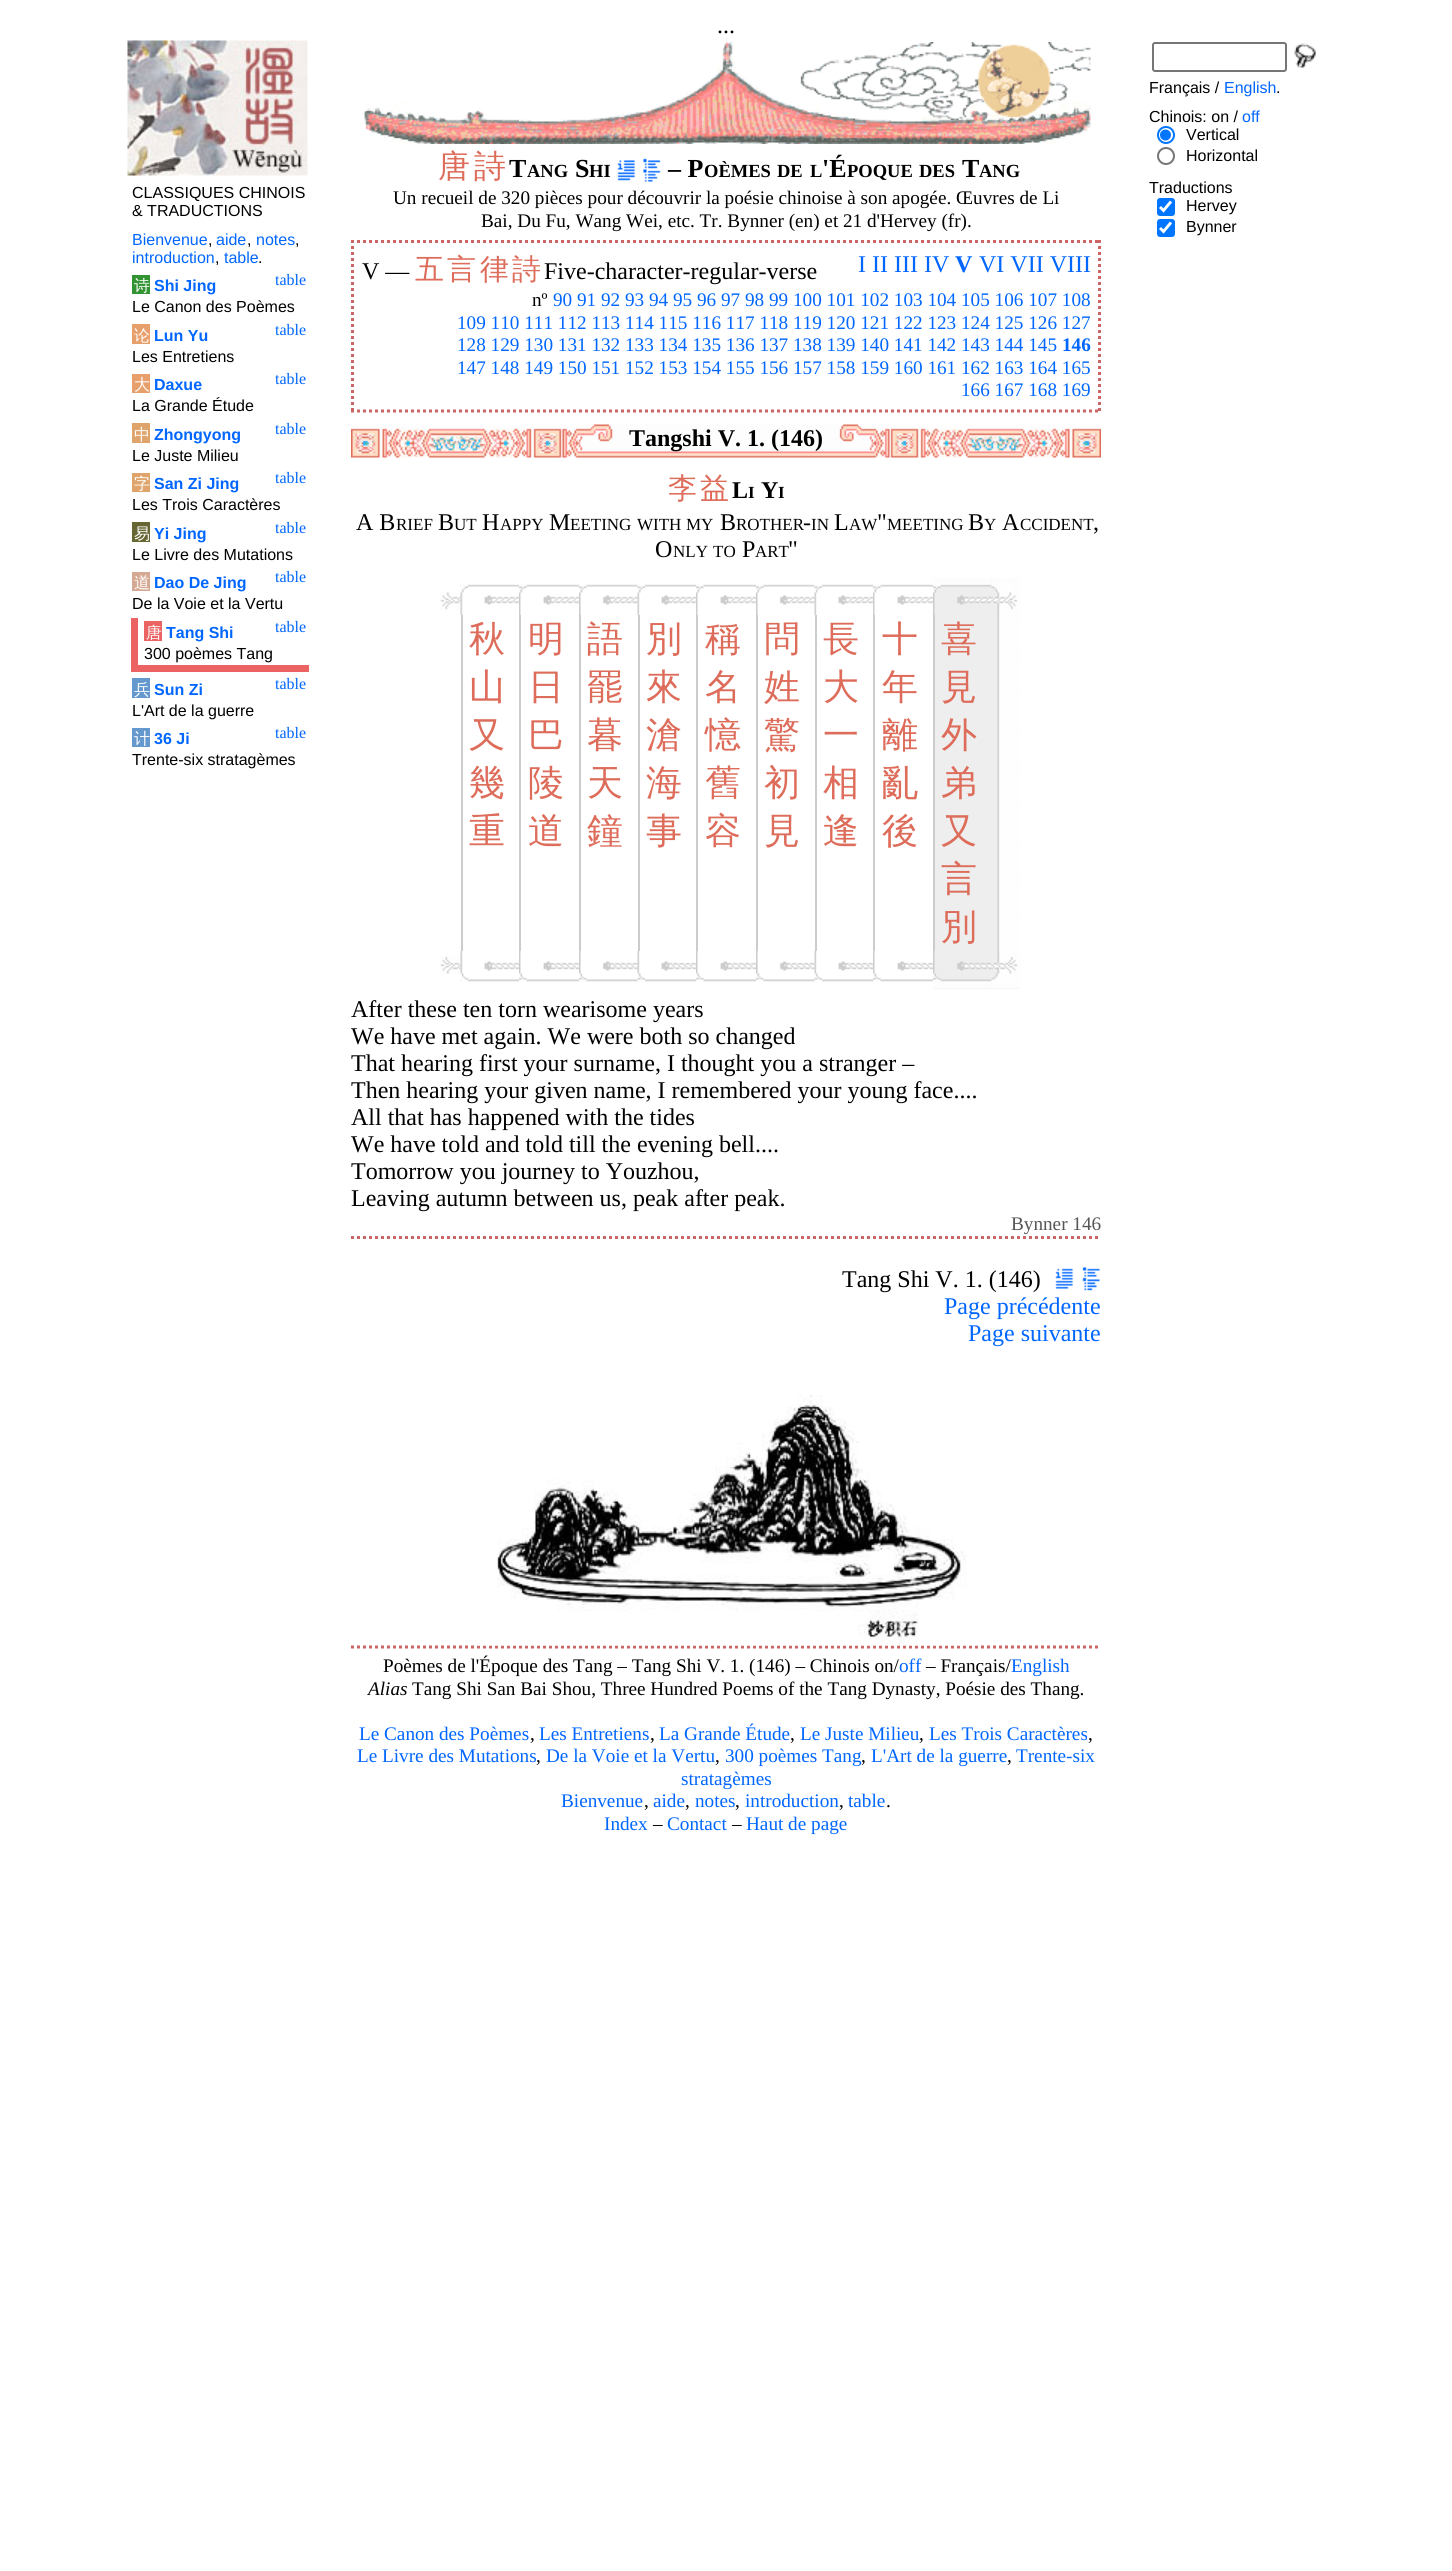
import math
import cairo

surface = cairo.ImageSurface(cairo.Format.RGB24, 1452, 2571)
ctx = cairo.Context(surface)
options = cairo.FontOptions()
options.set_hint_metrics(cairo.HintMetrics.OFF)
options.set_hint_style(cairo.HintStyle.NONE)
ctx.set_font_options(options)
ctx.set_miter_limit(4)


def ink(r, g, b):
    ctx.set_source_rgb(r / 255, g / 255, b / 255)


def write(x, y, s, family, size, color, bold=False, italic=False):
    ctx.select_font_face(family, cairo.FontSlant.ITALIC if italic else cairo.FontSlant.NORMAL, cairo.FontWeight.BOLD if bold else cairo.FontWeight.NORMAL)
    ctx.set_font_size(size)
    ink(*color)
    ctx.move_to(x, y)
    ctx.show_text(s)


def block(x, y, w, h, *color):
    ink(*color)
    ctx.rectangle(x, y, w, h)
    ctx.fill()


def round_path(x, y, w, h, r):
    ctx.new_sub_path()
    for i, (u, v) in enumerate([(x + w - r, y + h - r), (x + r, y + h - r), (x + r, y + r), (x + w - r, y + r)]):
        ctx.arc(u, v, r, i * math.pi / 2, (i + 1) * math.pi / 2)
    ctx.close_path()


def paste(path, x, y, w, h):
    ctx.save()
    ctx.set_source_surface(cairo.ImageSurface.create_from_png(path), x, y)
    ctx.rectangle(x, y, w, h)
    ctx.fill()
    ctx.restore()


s1 = dict(family="Liberation Serif", size=24, color=(0, 0, 0))
s2 = dict(family="Liberation Sans", size=16, color=(0, 0, 0))
s3 = dict(family="Liberation Sans", size=16, color=(0, 102, 255))
s4 = dict(family="Liberation Serif", size=16, color=(0, 102, 255))
s5 = dict(family="WenQuanYi Zen Hei Medium", size=16, color=(255, 255, 255))
s6 = dict(family="Liberation Sans", size=16, color=(0, 102, 255), bold=True)
s7 = dict(family="WenQuanYi Zen Hei Medium", size=32, color=(222, 108, 90))
s8 = dict(family="Liberation Serif", size=26, color=(0, 0, 0), bold=True)
s9 = dict(family="Liberation Serif", size=18.5, color=(0, 0, 0), bold=True)
s10 = dict(family="Liberation Serif", size=19.2, color=(0, 0, 0))
s11 = dict(family="WenQuanYi Zen Hei Medium", size=29, color=(222, 108, 90))
s12 = dict(family="Liberation Serif", size=24, color=(0, 102, 255))
s13 = dict(family="Liberation Serif", size=24, color=(0, 102, 255), bold=True)
s14 = dict(family="Liberation Serif", size=19.2, color=(0, 102, 255))
s15 = dict(family="Liberation Serif", size=19.2, color=(0, 102, 255), bold=True)
s16 = dict(family="Liberation Serif", size=24, color=(0, 0, 0), bold=True)
s17 = dict(family="Liberation Serif", size=17, color=(0, 0, 0), bold=True)
s18 = dict(family="Liberation Serif", size=17, color=(0, 0, 0))
s19 = dict(family="WenQuanYi Zen Hei Medium", size=36, color=(222, 108, 90))
s20 = dict(family="Liberation Serif", size=19.2, color=(85, 85, 85))
s21 = dict(family="Liberation Serif", size=19.2, color=(0, 0, 0), italic=True)

ink(255, 255, 255)
ctx.paint()
write(717, 33, "...", **s1)
paste("pic1.png", 127, 40, 181, 136)
write(132, 198, "CLASSIQUES CHINOIS", **s2)
write(132, 216, "& TRADUCTIONS", **s2)
write(132, 245, "Bienvenue", **s3)
write(208, 245, ",", **s2)
write(216, 245, "aide", **s3)
write(247, 245, ",", **s2)
write(256, 245, "notes", **s3)
write(295, 245, ",", **s2)
write(132, 263, "introduction", **s3)
write(215, 263, ",", **s2)
write(224, 263, "table", **s3)
write(258, 263, ".", **s2)
write(275, 285, "table", **s4)
block(132, 275, 18, 19, 50, 147, 51)
write(134, 291, "诗", **s5)
write(154, 291, "Shi Jing", **s6)
write(132, 312, "Le Canon des Poèmes", **s2)
block(132, 324, 18, 20, 231, 159, 107)
write(134, 341, "论", **s5)
write(154, 341, "Lun Yu", **s6)
write(132, 362, "Les Entretiens", **s2)
write(275, 335, "table", **s4)
block(132, 374, 18, 19, 231, 159, 107)
write(134, 390, "大", **s5)
write(154, 390, "Daxue", **s6)
write(132, 411, "La Grande Étude", **s2)
write(275, 384, "table", **s4)
block(132, 423, 18, 20, 223, 164, 108)
write(134, 440, "中", **s5)
write(154, 440, "Zhongyong", **s6)
write(132, 461, "Le Juste Milieu", **s2)
write(275, 434, "table", **s4)
block(132, 473, 18, 19, 223, 164, 108)
write(134, 489, "字", **s5)
write(154, 489, "San Zi Jing", **s6)
write(132, 510, "Les Trois Caractères", **s2)
write(275, 483, "table", **s4)
write(275, 533, "table", **s4)
block(132, 522, 18, 20, 102, 102, 51)
write(134, 539, "易", **s5)
write(154, 539, "Yi Jing", **s6)
write(132, 560, "Le Livre des Mutations", **s2)
block(132, 572, 18, 19, 213, 169, 148)
write(134, 588, "道", **s5)
write(154, 588, "Dao De Jing", **s6)
write(132, 609, "De la Voie et la Vertu", **s2)
write(275, 582, "table", **s4)
block(131, 665, 178, 7, 235, 99, 99)
block(131, 618, 7, 54, 235, 99, 99)
block(144, 621, 18, 20, 235, 99, 99)
write(146, 638, "唐", **s5)
write(166, 638, "Tang Shi", **s6)
write(144, 659, "300 poèmes Tang", **s2)
write(275, 632, "table", **s4)
block(132, 678, 18, 20, 101, 153, 205)
write(134, 695, "兵", **s5)
write(154, 695, "Sun Zi", **s6)
write(132, 716, "L'Art de la guerre", **s2)
write(275, 689, "table", **s4)
write(275, 738, "table", **s4)
block(132, 728, 18, 19, 101, 153, 205)
write(134, 744, "计", **s5)
write(154, 744, "36 Ji", **s6)
write(132, 765, "Trente-six stratagèmes", **s2)
paste("pic2.png", 364, 42, 727, 102)
write(438, 177, "唐", **s7)
write(474, 177, "詩", **s7)
write(509, 177, "T", **s8)
write(527, 177, "ANG", **s9)
write(575, 177, "S", **s8)
write(589, 177, "HI", **s9)
paste("pic3.png", 617, 160, 18, 21)
paste("pic4.png", 643, 158, 18, 24)
write(668, 177, "– P", **s8)
write(704, 177, "OÈMES", **s9)
write(777, 177, "DE", **s9)
write(810, 177, "L", **s9)
write(822, 177, "'É", **s8)
write(847, 177, "POQUE", **s9)
write(919, 177, "DES", **s9)
write(962, 177, "T", **s8)
write(979, 177, "ANG", **s9)
write(393, 204, "Un recueil de 320 pièces pour découvrir la poésie chinoise à son apogée. Œuvres de Li", **s10)
write(481, 227, "Bai, Du Fu, Wang Wei, etc. Tr. Bynner (en) et 21 d'Hervey (fr).", **s10)
ctx.new_path()
ctx.move_to(351, 241.5)
ctx.line_to(1101, 241.5)
ink(204, 102, 102)
ctx.set_line_width(3)
ctx.set_dash([3, 3])
ctx.stroke()
ctx.new_path()
ctx.move_to(1099.5, 240)
ctx.line_to(1099.5, 412.5)
ctx.stroke()
ctx.new_path()
ctx.move_to(351, 411)
ctx.line_to(1101, 411)
ctx.stroke()
ctx.new_path()
ctx.move_to(352.5, 240)
ctx.line_to(352.5, 412.5)
ctx.stroke()
write(362, 279, "V —", **s1)
write(415, 279, "五", **s11)
write(447, 279, "言", **s11)
write(480, 279, "律", **s11)
write(512, 279, "詩", **s11)
write(544, 279, "Five-character-regular-verse", **s1)
write(858, 272, "I II III IV", **s12)
write(955, 272, "V", **s13)
write(979, 272, "VI VII VIII", **s12)
write(532, 306, "nº", **s10)
write(553, 306, "90 91 92 93 94 95 96 97 98 99 100 101 102 103 104 105 106 107 108", **s14)
write(457, 329, "109 110 111 112 113 114 115 116 117 118 119 120 121 122 123 124 125 126 127", **s14)
write(457, 351, "128 129 130 131 132 133 134 135 136 137 138 139 140 141 142 143 144 145", **s14)
write(1062, 351, "146", **s15)
write(457, 374, "147 148 149 150 151 152 153 154 155 156 157 158 159 160 161 162 163 164 165", **s14)
write(961, 396, "166 167 168 169", **s14)
paste("pic5.png", 351, 424, 750, 34)
write(629, 446, "Tangshi V. 1. (146)", **s16)
write(668, 498, "李", **s11)
write(700, 498, "益", **s11)
write(732, 498, "L", **s16)
write(748, 498, "I", **s17)
write(761, 498, "Y", **s16)
write(778, 498, "I", **s17)
write(356, 530, "A B", **s1)
write(396, 530, "RIEF", **s18)
write(438, 530, "B", **s1)
write(454, 530, "UT", **s18)
write(482, 530, "H", **s1)
write(500, 530, "APPY", **s18)
write(549, 530, "M", **s1)
write(570, 530, "EETING", **s18)
write(637, 530, "WITH", **s18)
write(686, 530, "MY", **s18)
write(720, 530, "B", **s1)
write(736, 530, "ROTHER", **s18)
write(803, 530, "-", **s1)
write(811, 530, "IN", **s18)
write(834, 530, "L", **s1)
write(849, 530, "AW", **s18)
write(877, 530, "\"", **s1)
write(887, 530, "MEETING", **s18)
write(968, 530, "B", **s1)
write(984, 530, "Y", **s18)
write(1002, 530, "A", **s1)
write(1020, 530, "CCIDENT", **s18)
write(1093, 530, ",", **s1)
write(655, 557, "O", **s1)
write(742, 557, "P", **s1)
write(788, 557, "\"", **s1)
write(673, 557, "NLY", **s18)
write(713, 557, "TO", **s18)
write(755, 557, "ART", **s18)
paste("pic6.png", 440, 592, 21, 18)
paste("pic7.png", 460, 584, 59, 21)
paste("pic8.png", 460, 584, 8, 31)
paste("pic9.png", 526, 584, 53, 21)
paste("pic10.png", 519, 584, 8, 31)
paste("pic11.png", 586, 584, 52, 21)
paste("pic12.png", 579, 584, 8, 31)
paste("pic13.png", 637, 584, 59, 21)
paste("pic14.png", 637, 584, 8, 31)
paste("pic9.png", 703, 584, 53, 21)
paste("pic10.png", 696, 584, 8, 31)
paste("pic11.png", 763, 584, 52, 21)
paste("pic12.png", 756, 584, 8, 31)
paste("pic13.png", 814, 584, 59, 21)
paste("pic15.png", 814, 584, 8, 31)
paste("pic9.png", 880, 584, 53, 21)
paste("pic10.png", 873, 584, 8, 31)
block(934, 578, 58, 37, 238, 238, 238)
paste("pic16.png", 933, 578, 59, 27)
paste("pic17.png", 933, 584, 8, 31)
block(992, 587, 6, 28, 238, 238, 238)
paste("pic18.png", 991, 578, 29, 37)
block(461, 615, 2, 336, 204, 204, 204)
write(469, 651, "秋", **s19)
write(469, 699, "山", **s19)
write(469, 747, "又", **s19)
write(469, 795, "幾", **s19)
write(469, 843, "重", **s19)
block(519, 615, 2, 336, 204, 204, 204)
write(528, 651, "明", **s19)
write(528, 699, "日", **s19)
write(528, 747, "巴", **s19)
write(528, 795, "陵", **s19)
write(528, 843, "道", **s19)
block(579, 615, 2, 336, 204, 204, 204)
write(587, 651, "語", **s19)
write(587, 699, "罷", **s19)
write(587, 747, "暮", **s19)
write(587, 795, "天", **s19)
write(587, 843, "鐘", **s19)
block(638, 615, 2, 336, 204, 204, 204)
write(646, 651, "別", **s19)
write(646, 699, "來", **s19)
write(646, 747, "滄", **s19)
write(646, 795, "海", **s19)
write(646, 843, "事", **s19)
block(696, 615, 2, 336, 204, 204, 204)
write(705, 651, "稱", **s19)
write(705, 699, "名", **s19)
write(705, 747, "憶", **s19)
write(705, 795, "舊", **s19)
write(705, 843, "容", **s19)
block(756, 615, 2, 336, 204, 204, 204)
write(764, 651, "問", **s19)
write(764, 699, "姓", **s19)
write(764, 747, "驚", **s19)
write(764, 795, "初", **s19)
write(764, 843, "見", **s19)
block(815, 615, 2, 336, 204, 204, 204)
write(823, 651, "長", **s19)
write(823, 699, "大", **s19)
write(823, 747, "一", **s19)
write(823, 795, "相", **s19)
write(823, 843, "逢", **s19)
block(873, 615, 2, 336, 204, 204, 204)
write(882, 651, "十", **s19)
write(882, 699, "年", **s19)
write(882, 747, "離", **s19)
write(882, 795, "亂", **s19)
write(882, 843, "後", **s19)
block(935, 615, 63, 336, 238, 238, 238)
block(933, 615, 2, 336, 204, 204, 204)
write(941, 651, "喜", **s19)
write(941, 699, "見", **s19)
write(941, 747, "外", **s19)
write(941, 795, "弟", **s19)
write(941, 843, "又", **s19)
write(941, 891, "言", **s19)
write(941, 939, "別", **s19)
paste("pic19.png", 997, 615, 23, 336)
paste("pic31.png", 440, 956, 21, 18)
paste("pic20.png", 460, 961, 59, 21)
paste("pic21.png", 460, 951, 8, 31)
paste("pic22.png", 526, 961, 53, 21)
paste("pic23.png", 519, 951, 8, 31)
paste("pic24.png", 586, 961, 52, 21)
paste("pic25.png", 579, 951, 8, 31)
paste("pic26.png", 637, 961, 59, 21)
paste("pic27.png", 637, 951, 8, 31)
paste("pic22.png", 703, 961, 53, 21)
paste("pic23.png", 696, 951, 8, 31)
paste("pic24.png", 763, 961, 52, 21)
paste("pic25.png", 756, 951, 8, 31)
paste("pic26.png", 814, 961, 59, 21)
paste("pic28.png", 814, 951, 8, 31)
paste("pic22.png", 880, 961, 53, 21)
paste("pic23.png", 873, 951, 8, 31)
block(933, 951, 87, 38, 238, 238, 238)
paste("pic29.png", 933, 961, 59, 28)
paste("pic30.png", 933, 951, 8, 31)
paste("pic32.png", 991, 951, 29, 38)
write(351, 1017, "After these ten torn wearisome years", **s1)
write(351, 1044, "We have met again. We were both so changed", **s1)
write(351, 1071, "That hearing first your surname, I thought you a stranger –", **s1)
write(351, 1098, "Then hearing your given name, I remembered your young face....", **s1)
write(351, 1125, "All that has happened with the tides", **s1)
write(351, 1152, "We have told and told till the evening bell....", **s1)
write(351, 1179, "Tomorrow you journey to Youzhou,", **s1)
write(351, 1206, "Leaving autumn between us, peak after peak.", **s1)
ctx.new_path()
ctx.move_to(351, 1237.5)
ctx.line_to(1101, 1237.5)
ink(204, 102, 102)
ctx.stroke()
write(1011, 1230, "Bynner 146", **s20)
write(842, 1287, "Tang Shi V. 1. (146)", **s1)
paste("pic33.png", 1055, 1268, 18, 21)
paste("pic34.png", 1082, 1267, 18, 24)
write(944, 1314, "Page précédente", **s12)
write(968, 1341, "Page suivante", **s12)
ctx.new_path()
ctx.move_to(351, 1647)
ctx.line_to(1101, 1647)
ink(204, 102, 102)
ctx.stroke()
paste("pic35.png", 477, 1395, 501, 251)
write(383, 1672, "Poèmes de l'Époque des Tang – Tang Shi V. 1. (146) – Chinois on/", **s10)
write(899, 1672, "off", **s14)
write(926, 1672, "– Français/", **s10)
write(1011, 1672, "English", **s14)
write(368, 1695, "Alias", **s21)
write(412, 1695, "Tang Shi San Bai Shou, Three Hundred Poems of the Tang Dynasty, Poésie des Thang.", **s10)
write(359, 1740, "Le Canon des Poèmes", **s14)
write(530, 1740, ",", **s10)
write(539, 1740, "Les Entretiens", **s14)
write(650, 1740, ",", **s10)
write(659, 1740, "La Grande Étude", **s14)
write(790, 1740, ",", **s10)
write(800, 1740, "Le Juste Milieu", **s14)
write(919, 1740, ",", **s10)
write(929, 1740, "Les Trois Caractères", **s14)
write(1088, 1740, ",", **s10)
write(357, 1762, "Le Livre des Mutations", **s14)
write(536, 1762, ",", **s10)
write(546, 1762, "De la Voie et la Vertu", **s14)
write(715, 1762, ",", **s10)
write(725, 1762, "300 poèmes Tang", **s14)
write(861, 1762, ",", **s10)
write(871, 1762, "L'Art de la guerre", **s14)
write(1007, 1762, ",", **s10)
write(1016, 1762, "Trente-six", **s14)
write(681, 1785, "stratagèmes", **s14)
write(561, 1807, "Bienvenue", **s14)
write(644, 1807, ",", **s10)
write(653, 1807, "aide", **s14)
write(685, 1807, ",", **s10)
write(695, 1807, "notes", **s14)
write(735, 1807, ",", **s10)
write(745, 1807, "introduction", **s14)
write(839, 1807, ",", **s10)
write(848, 1807, "table", **s14)
write(886, 1807, ".", **s10)
write(604, 1830, "Index", **s14)
write(653, 1830, "–", **s10)
write(667, 1830, "Contact", **s14)
write(732, 1830, "–", **s10)
write(746, 1830, "Haut de page", **s14)
round_path(1153, 43, 133, 28, 2)
ink(118, 118, 118)
ctx.set_line_width(2)
ctx.set_dash([])
ctx.stroke()
paste("pic36.png", 1294, 43, 22, 25)
write(1149, 93, "Français /", **s2)
write(1224, 93, "English", **s3)
write(1276, 93, ".", **s2)
write(1149, 122, "Chinois: on /", **s2)
write(1242, 122, "off", **s3)
ctx.new_path()
ctx.arc(1166, 135, 8, 0, 2 * math.pi)
ink(0, 117, 255)
ctx.stroke()
ctx.arc(1165.5, 135, 5.5, 0, 2 * math.pi)
ctx.fill()
write(1186, 140, "Vertical", **s2)
ctx.new_path()
ctx.arc(1166, 156, 8, 0, 2 * math.pi)
ink(118, 118, 118)
ctx.stroke()
write(1186, 161, "Horizontal", **s2)
write(1149, 193, "Traductions", **s2)
ink(0, 117, 255)
round_path(1157, 198, 18, 18, 3)
ctx.fill()
ctx.new_path()
ctx.move_to(1160, 207)
ctx.line_to(1163.5, 210.5)
ctx.line_to(1171, 201.5)
ink(255, 255, 255)
ctx.set_line_width(2.9)
ctx.stroke()
write(1186, 211, "Hervey", **s2)
ink(0, 117, 255)
round_path(1157, 219, 18, 18, 3)
ctx.fill()
ctx.new_path()
ctx.move_to(1160, 228)
ctx.line_to(1163.5, 231.5)
ctx.line_to(1171, 222.5)
ink(255, 255, 255)
ctx.stroke()
write(1186, 232, "Bynner", **s2)
surface.write_to_png("screenshot.png")
